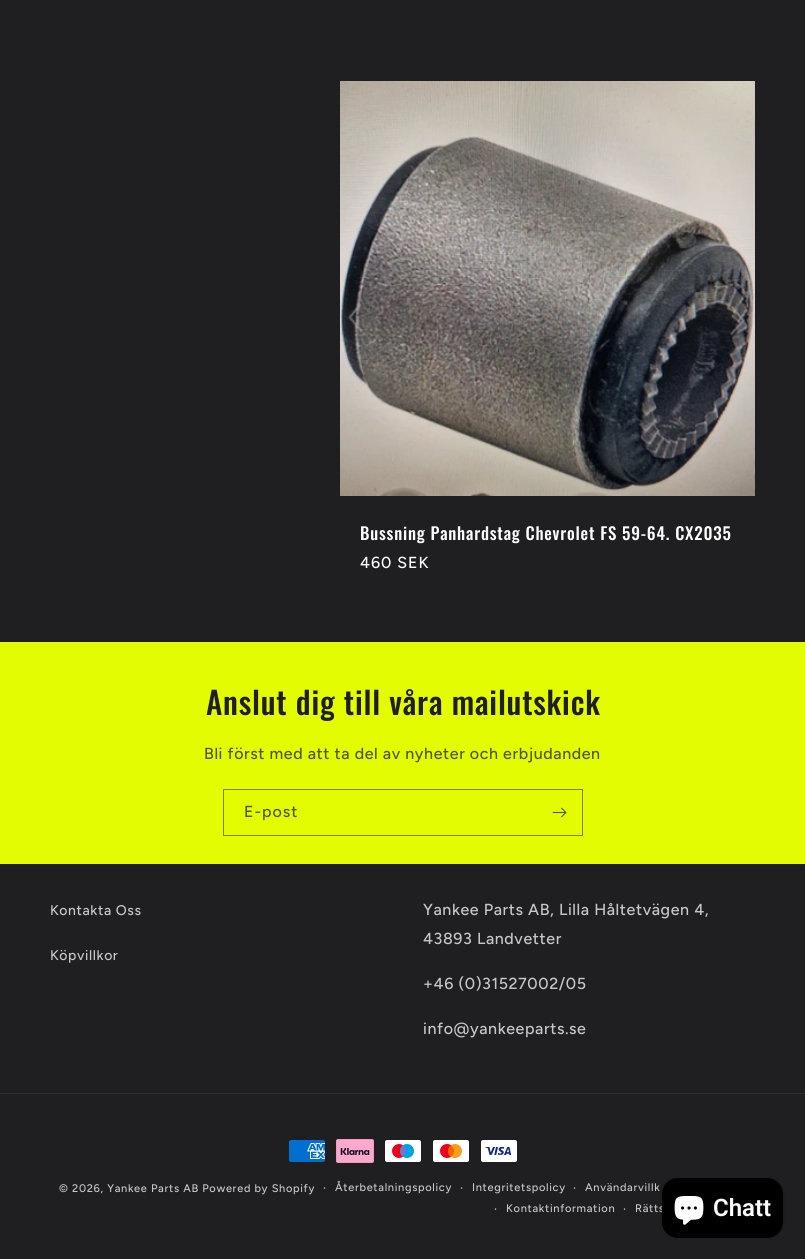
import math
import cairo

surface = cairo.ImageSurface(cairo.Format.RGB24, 805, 1259)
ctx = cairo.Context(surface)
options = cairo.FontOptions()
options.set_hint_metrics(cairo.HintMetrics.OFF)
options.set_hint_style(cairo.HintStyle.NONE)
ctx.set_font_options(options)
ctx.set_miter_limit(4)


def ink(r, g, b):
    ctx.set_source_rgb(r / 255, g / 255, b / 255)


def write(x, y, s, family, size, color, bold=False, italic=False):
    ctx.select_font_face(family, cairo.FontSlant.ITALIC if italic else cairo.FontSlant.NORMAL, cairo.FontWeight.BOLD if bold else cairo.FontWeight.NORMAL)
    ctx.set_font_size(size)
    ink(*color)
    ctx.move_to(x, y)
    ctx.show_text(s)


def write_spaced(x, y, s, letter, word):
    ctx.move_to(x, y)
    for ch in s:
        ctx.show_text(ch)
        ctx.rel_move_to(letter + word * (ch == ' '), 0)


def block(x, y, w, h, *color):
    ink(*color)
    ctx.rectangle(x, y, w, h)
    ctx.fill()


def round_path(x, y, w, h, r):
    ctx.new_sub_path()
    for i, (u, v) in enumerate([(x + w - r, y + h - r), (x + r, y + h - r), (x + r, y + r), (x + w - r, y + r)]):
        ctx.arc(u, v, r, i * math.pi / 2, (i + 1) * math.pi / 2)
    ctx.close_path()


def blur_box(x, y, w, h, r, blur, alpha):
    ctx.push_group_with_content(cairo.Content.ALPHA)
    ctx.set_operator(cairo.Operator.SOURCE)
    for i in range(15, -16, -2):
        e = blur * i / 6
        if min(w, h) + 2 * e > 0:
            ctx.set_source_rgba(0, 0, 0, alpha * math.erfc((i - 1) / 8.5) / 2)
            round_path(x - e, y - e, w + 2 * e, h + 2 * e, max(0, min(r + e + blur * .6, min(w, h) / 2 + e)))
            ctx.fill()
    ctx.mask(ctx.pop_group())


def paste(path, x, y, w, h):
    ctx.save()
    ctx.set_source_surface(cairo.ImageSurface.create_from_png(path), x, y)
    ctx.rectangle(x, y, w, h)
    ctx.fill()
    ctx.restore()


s1 = dict(family="Roboto SemiBold", size=24, color=(255, 255, 255))

ink(31, 31, 33)
ctx.paint()
paste("pic1.png", 340, 81, 415, 415)
ctx.select_font_face("Oswald Medium")
ctx.set_font_size(16.9)
ink(255, 255, 255)
write_spaced(360, 540, "Bussning Panhardstag Chevrolet FS 59-64. CX2035", 0.8, 0)
ctx.select_font_face("Figtree Medium")
ctx.set_font_size(16)
write_spaced(360, 568, "460 SEK", 1, 0)
block(0, 642, 805, 222, 227, 252, 2)
ctx.select_font_face("Oswald Medium")
ctx.set_font_size(31.25)
ink(31, 31, 33)
write_spaced(206, 715, "Anslut dig till våra mailutskick", 0.8, 0)
ctx.select_font_face("Figtree Medium")
ctx.set_font_size(16)
ink(80, 86, 25)
write_spaced(204, 759, "Bli först med att ta del av nyheter och erbjudanden", 0.6, 0)
ctx.rectangle(223.5, 789.5, 359, 46)
ink(119, 130, 19)
ctx.set_line_width(1)
ctx.stroke()
ink(80, 86, 25)
write_spaced(244, 817, "E-post", 1, 0)
paste("pic2.png", 552, 807, 15, 11)
ctx.set_font_size(14)
ink(199, 199, 200)
write_spaced(50, 915, "Kontakta Oss", 0.6, 0)
write_spaced(50, 960, "Köpvillkor", 0.6, 0)
ctx.set_font_size(16)
write_spaced(423, 915, "Yankee Parts AB, Lilla Håltetvägen 4,", 0.6, 0)
write_spaced(423, 944, "43893 Landvetter", 0.6, 0)
write_spaced(423, 989, "+46 (0)31527002/05", 0.6, 0)
write_spaced(423, 1034, "info@yankeeparts.se", 0.6, 0)
block(0, 1093, 805, 1, 49, 49, 51)
paste("pic3.png", 289, 1140, 36, 22)
paste("pic4.png", 336, 1139, 38, 24)
paste("pic5.png", 385, 1140, 36, 22)
paste("pic6.png", 433, 1140, 36, 22)
paste("pic7.png", 481, 1140, 36, 22)
ctx.set_font_size(11)
ink(199, 199, 200)
write_spaced(59, 1192, "© 2026, Yankee Parts AB Powered by Shopify", 0.7, 0)
ctx.set_font_size(12)
write_spaced(323, 1192, "·", 0.7, 0)
ctx.set_font_size(11)
write_spaced(335, 1191, "Återbetalningspolicy", 0.7, 0)
ctx.set_font_size(12)
write_spaced(460, 1192, "·", 0.7, 0)
ctx.set_font_size(11)
write_spaced(472, 1191, "Integritetspolicy", 0.7, 0)
ctx.set_font_size(12)
write_spaced(573, 1192, "·", 0.7, 0)
ctx.set_font_size(11)
write_spaced(585, 1191, "Användarvillk", 0.7, 0)
ctx.set_font_size(12)
write_spaced(494, 1213, "·", 0.7, 0)
ctx.set_font_size(11)
write_spaced(506, 1212, "Kontaktinformation", 0.7, 0)
ctx.set_font_size(12)
write_spaced(623, 1213, "·", 0.7, 0)
ctx.set_font_size(11)
write_spaced(635, 1212, "Rätts", 0.7, 0)
ink(0, 0, 0)
blur_box(662, 1178, 121, 60, 16, 2.5, 0.15)
ink(0, 0, 0)
round_path(662, 1178, 121, 60, 16)
ctx.fill()
paste("pic8.png", 674, 1196, 30, 29)
write(713, 1216, "Chatt", **s1)
surface.write_to_png("screenshot.png")
